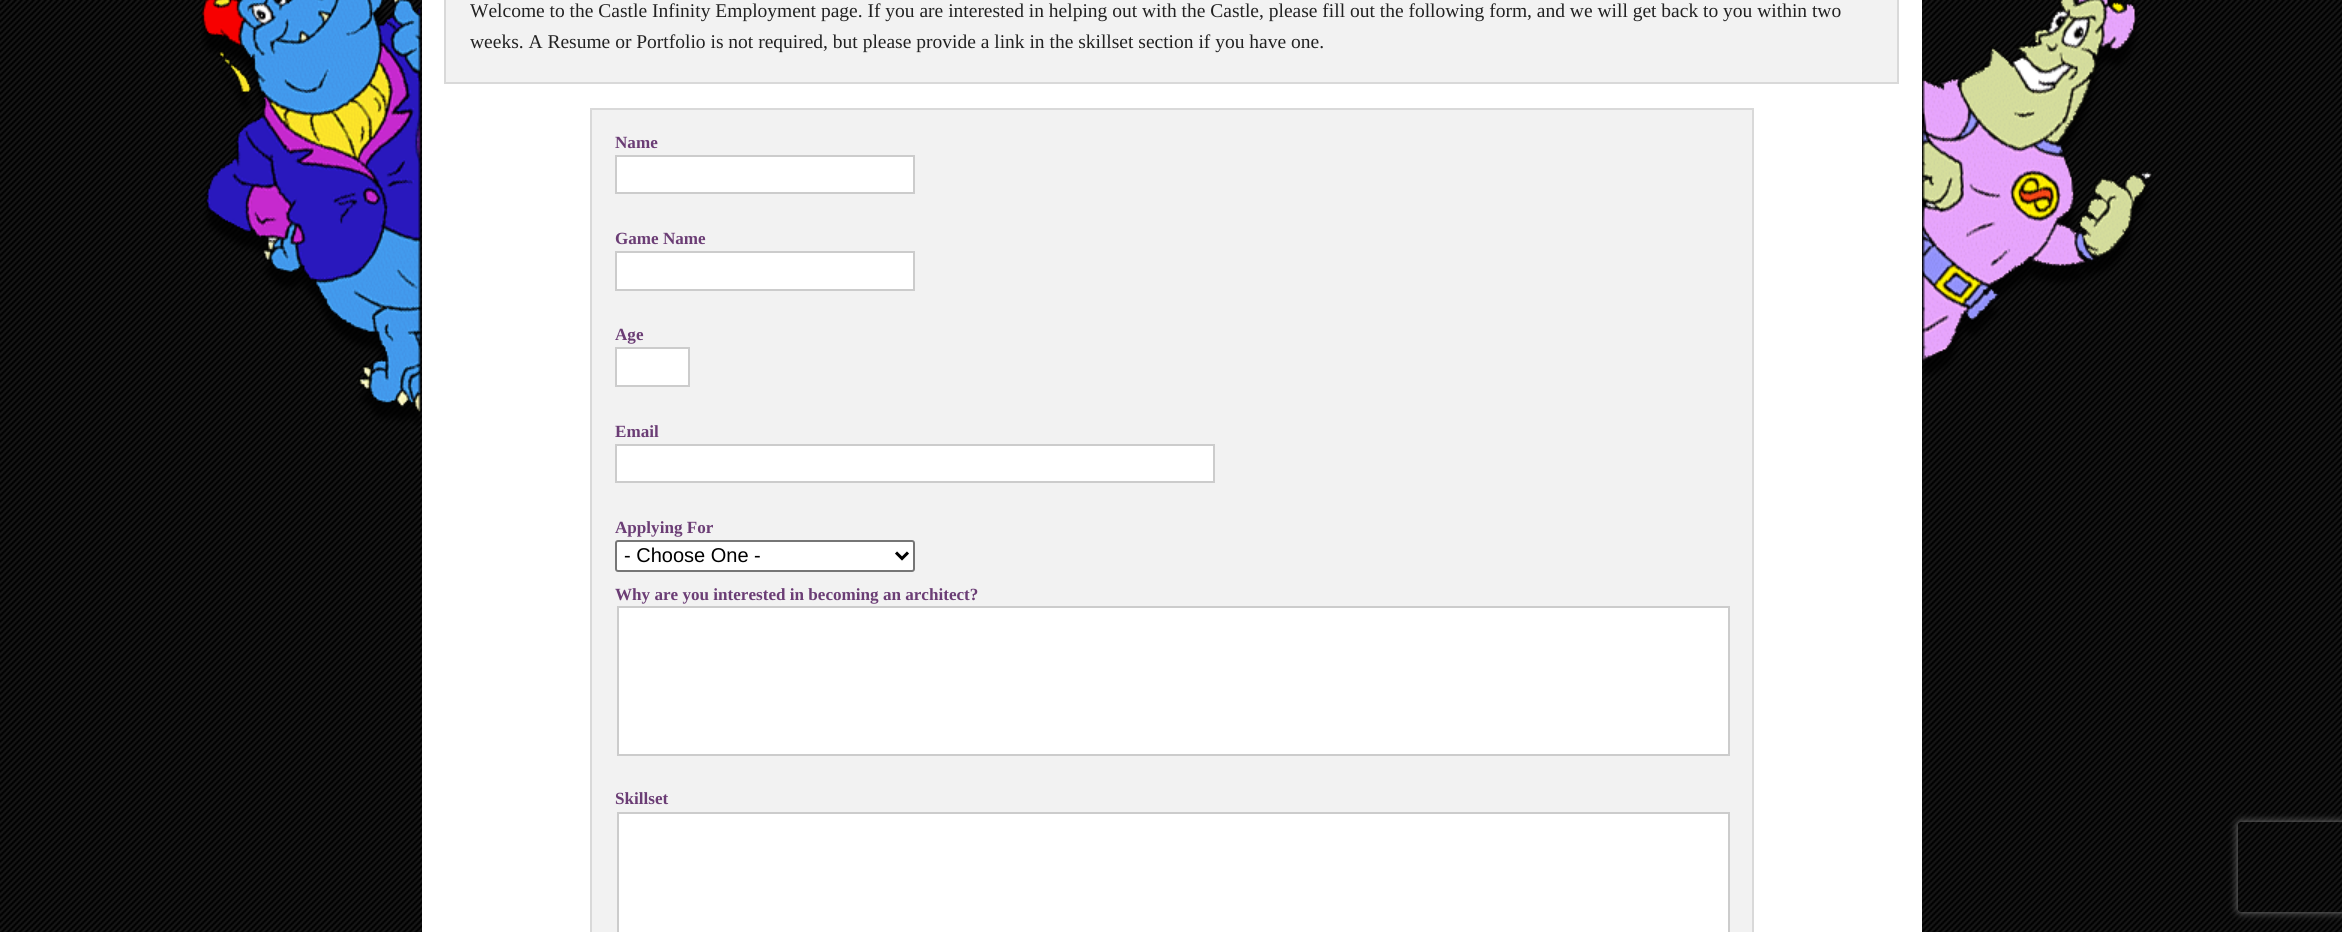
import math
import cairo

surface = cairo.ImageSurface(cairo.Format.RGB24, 2342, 932)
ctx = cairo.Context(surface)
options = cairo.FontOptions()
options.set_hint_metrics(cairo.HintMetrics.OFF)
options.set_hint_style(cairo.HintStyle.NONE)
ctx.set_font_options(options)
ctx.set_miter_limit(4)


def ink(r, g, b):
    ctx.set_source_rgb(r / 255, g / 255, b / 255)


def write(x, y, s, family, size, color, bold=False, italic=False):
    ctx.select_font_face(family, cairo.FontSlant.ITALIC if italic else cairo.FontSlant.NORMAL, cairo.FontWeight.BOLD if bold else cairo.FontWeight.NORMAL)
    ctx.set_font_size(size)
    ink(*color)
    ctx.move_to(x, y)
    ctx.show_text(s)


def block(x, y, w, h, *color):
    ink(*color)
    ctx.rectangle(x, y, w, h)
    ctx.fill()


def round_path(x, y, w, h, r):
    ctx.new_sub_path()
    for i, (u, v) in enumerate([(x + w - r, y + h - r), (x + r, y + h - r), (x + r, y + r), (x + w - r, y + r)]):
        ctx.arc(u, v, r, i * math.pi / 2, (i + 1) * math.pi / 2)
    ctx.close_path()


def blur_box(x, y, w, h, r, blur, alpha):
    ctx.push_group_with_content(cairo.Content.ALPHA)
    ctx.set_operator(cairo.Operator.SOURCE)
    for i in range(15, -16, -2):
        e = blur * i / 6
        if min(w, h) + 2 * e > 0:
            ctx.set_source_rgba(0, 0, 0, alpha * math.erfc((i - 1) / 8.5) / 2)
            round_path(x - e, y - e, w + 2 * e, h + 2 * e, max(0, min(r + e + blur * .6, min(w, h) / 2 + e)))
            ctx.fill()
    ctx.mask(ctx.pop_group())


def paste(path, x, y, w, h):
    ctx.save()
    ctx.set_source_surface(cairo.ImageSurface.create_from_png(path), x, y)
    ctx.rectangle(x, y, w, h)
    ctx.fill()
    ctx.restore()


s1 = dict(family="Liberation Serif", size=19.5, color=(34, 34, 34))
s2 = dict(family="Liberation Serif", size=17.1, color=(107, 61, 117), bold=True)
s3 = dict(family="Liberation Sans", size=20, color=(0, 0, 0))

ink(255, 255, 255)
ctx.paint()
paste("pic1.png", 0, 0, 2342, 932)
block(422, 0, 1500, 932, 255, 255, 255)
paste("pic2.png", 201, 0, 221, 426)
ink(242, 242, 242)
ctx.rectangle(445, -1, 1453, 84)
ctx.fill_preserve()
ink(217, 217, 217)
ctx.stroke()
write(470, 17, "Welcome to the Castle Infinity Employment page. If you are interested in helping out with the Castle, please fill out the following form, and we will get back to you within two", **s1)
write(470, 48, "weeks. A Resume or Portfolio is not required, but please provide a link in the skillset section if you have one.", **s1)
ink(242, 242, 242)
ctx.rectangle(591, 109, 1162, 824)
ctx.fill_preserve()
ink(217, 217, 217)
ctx.stroke()
write(615, 148, "Name", **s2)
ink(255, 255, 255)
ctx.rectangle(616, 156, 298, 37)
ctx.fill_preserve()
ink(204, 204, 204)
ctx.stroke()
write(615, 244, "Game Name", **s2)
ink(255, 255, 255)
ctx.rectangle(616, 252, 298, 38)
ctx.fill_preserve()
ink(204, 204, 204)
ctx.stroke()
write(615, 340, "Age", **s2)
ink(255, 255, 255)
ctx.rectangle(616, 348, 73, 38)
ctx.fill_preserve()
ink(204, 204, 204)
ctx.stroke()
write(615, 437, "Email", **s2)
ink(255, 255, 255)
ctx.rectangle(616, 445, 598, 37)
ctx.fill_preserve()
ink(204, 204, 204)
ctx.stroke()
write(615, 533, "Applying For", **s2)
ink(255, 255, 255)
round_path(616, 541, 298, 30, 2)
ctx.fill_preserve()
ink(118, 118, 118)
ctx.stroke()
ctx.new_path()
ctx.move_to(896, 552.5)
ctx.line_to(902, 558.5)
ctx.line_to(908, 552.5)
ink(0, 0, 0)
ctx.set_line_width(3)
ctx.stroke()
write(624, 562, "- Choose One -", **s3)
write(615, 600, "Why are you interested in becoming an architect?", **s2)
ink(255, 255, 255)
ctx.rectangle(618, 607, 1111, 148)
ctx.fill_preserve()
ink(204, 204, 204)
ctx.set_line_width(2)
ctx.stroke()
write(615, 804, "Skillset", **s2)
ink(255, 255, 255)
ctx.rectangle(618, 813, 1111, 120)
ctx.fill_preserve()
ink(204, 204, 204)
ctx.stroke()
ctx.save()
ctx.set_fill_rule(cairo.FillRule.EVEN_ODD)
ctx.new_path()
ctx.move_to(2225, 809)
ctx.line_to(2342, 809)
ctx.line_to(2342, 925)
ctx.line_to(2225, 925)
ctx.close_path()
ctx.move_to(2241, 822)
ctx.line_to(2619, 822)
ctx.curve_to(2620.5, 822, 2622, 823.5, 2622, 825)
ctx.line_to(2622, 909)
ctx.curve_to(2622, 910.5, 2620.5, 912, 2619, 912)
ctx.line_to(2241, 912)
ctx.curve_to(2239.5, 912, 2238, 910.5, 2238, 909)
ctx.line_to(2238, 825)
ctx.curve_to(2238, 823.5, 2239.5, 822, 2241, 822)
ctx.close_path()
ctx.clip()
ink(128, 128, 128)
blur_box(2238, 822, 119, 90, 3, 4, 1)
ctx.restore()
paste("pic3.png", 1922, 0, 231, 377)
surface.write_to_png("screenshot.png")
